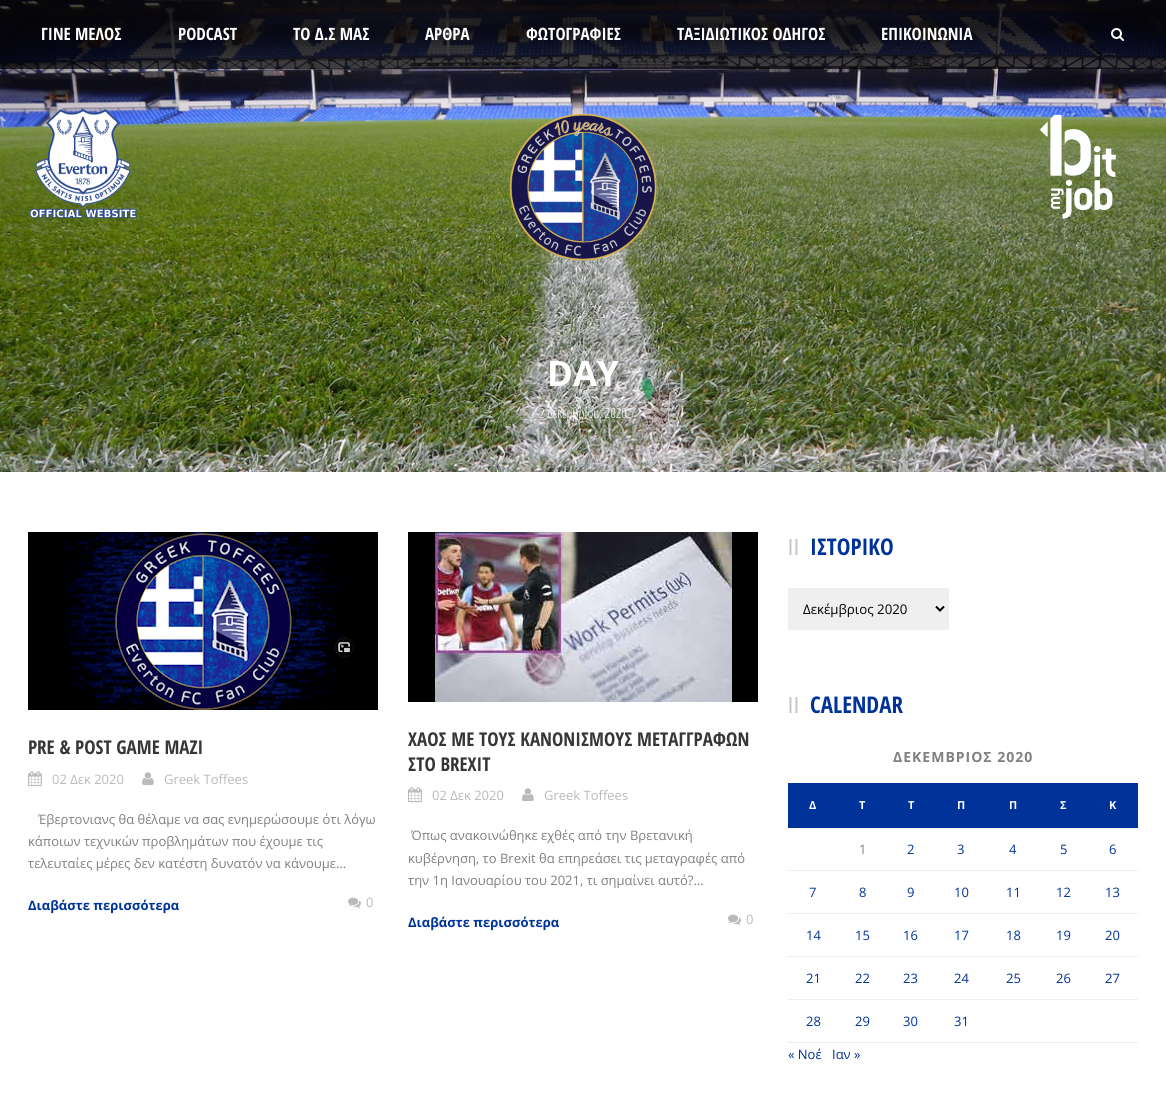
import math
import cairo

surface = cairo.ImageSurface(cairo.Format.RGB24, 1166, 1097)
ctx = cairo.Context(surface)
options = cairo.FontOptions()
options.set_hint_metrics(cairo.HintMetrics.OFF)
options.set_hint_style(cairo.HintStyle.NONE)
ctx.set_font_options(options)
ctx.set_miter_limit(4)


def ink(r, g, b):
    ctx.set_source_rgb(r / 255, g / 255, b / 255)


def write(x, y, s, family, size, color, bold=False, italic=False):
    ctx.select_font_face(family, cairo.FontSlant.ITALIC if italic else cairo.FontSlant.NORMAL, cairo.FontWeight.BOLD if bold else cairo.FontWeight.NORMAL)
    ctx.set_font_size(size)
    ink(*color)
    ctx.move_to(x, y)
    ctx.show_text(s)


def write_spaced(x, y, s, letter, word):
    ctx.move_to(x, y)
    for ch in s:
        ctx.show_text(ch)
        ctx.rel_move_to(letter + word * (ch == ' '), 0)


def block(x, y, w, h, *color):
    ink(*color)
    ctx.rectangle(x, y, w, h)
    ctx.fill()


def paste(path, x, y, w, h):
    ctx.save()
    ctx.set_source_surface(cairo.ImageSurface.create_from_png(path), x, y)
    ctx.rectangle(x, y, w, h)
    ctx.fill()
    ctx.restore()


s1 = dict(family="Open Sans Condensed", size=17, color=(255, 255, 255), bold=True)
s2 = dict(family="Open Sans", size=35, color=(255, 255, 255), bold=True)
s3 = dict(family="Open Sans Condensed Light", size=14, color=(255, 255, 255))
s4 = dict(family="Open Sans Condensed", size=19, color=(54, 54, 54), bold=True)
s5 = dict(family="Open Sans", size=13, color=(186, 186, 186))
s6 = dict(family="Open Sans", size=13, color=(128, 128, 128))
s7 = dict(family="Open Sans", size=13, color=(0, 51, 153), bold=True)
s8 = dict(family="Open Sans Condensed", size=23, color=(0, 51, 153), bold=True)
s9 = dict(family="Open Sans", size=13.25, color=(0, 0, 0))
s10 = dict(family="Open Sans", size=11, color=(255, 255, 255), bold=True)
s11 = dict(family="Open Sans", size=13, color=(0, 51, 153))

ink(255, 255, 255)
ctx.paint()
paste("pic1.png", 0, 0, 1166, 472)
ctx.set_source_rgba(0, 0, 0, 0.7)
ctx.rectangle(0, 0, 1166, 69)
ctx.fill()
write(41, 40, "ΓΙΝΕ ΜΕΛΟΣ", **s1)
write(178, 40, "PODCAST", **s1)
write(293, 40, "ΤΟ Δ.Σ ΜΑΣ", **s1)
write(425, 40, "ΑΡΘΡΑ", **s1)
write(526, 40, "ΦΩΤΟΓΡΑΦΙΕΣ", **s1)
write(677, 40, "ΤΑΞΙΔΙΩΤΙΚΟΣ ΟΔΗΓΟΣ", **s1)
write(881, 40, "ΕΠΙΚΟΙΝΩΝΙΑ", **s1)
paste("pic2.png", 1111, 28, 13, 13)
paste("pic3.png", 29, 109, 108, 110)
paste("pic4.png", 1040, 114, 76, 105)
paste("pic5.png", 509, 113, 148, 148)
write(547, 386, "DAY", **s2)
write(539, 418, "2 Δεκεμβρίου, 2020", **s3)
block(28, 532, 350, 178, 0, 0, 0)
paste("pic6.png", 61, 532, 293, 178)
write(28, 754, "PRE & POST GAME ΜΑΖΙ", **s4)
paste("pic7.png", 28, 771, 14, 16)
write(52, 784, "02 Δεκ 2020", **s5)
paste("pic8.png", 142, 772, 12, 14)
write(164, 784, "Greek Toffees", **s5)
write(38, 824, "Έβερτονιανς θα θέλαμε να σας ενημερώσουμε ότι λόγω", **s6)
write(28, 846, "κάποιων τεχνικών προβλημάτων που έχουμε τις", **s6)
write(28, 868, "τελευταίες μέρες δεν κατέστη δυνατόν να κάνουμε...", **s6)
write(28, 910, "Διαβάστε περισσότερα", **s7)
paste("pic9.png", 348, 897, 13, 11)
write(366, 907, "0", **s5)
block(408, 532, 350, 170, 0, 0, 0)
paste("pic10.png", 435, 532, 297, 170)
write(408, 746, "ΧΑΟΣ ΜΕ ΤΟΥΣ ΚΑΝΟΝΙΣΜΟΥΣ ΜΕΤΑΓΓΡΑΦΩΝ", **s4)
write(408, 771, "ΣΤΟ BREXIT", **s4)
paste("pic7.png", 408, 787, 14, 16)
write(432, 800, "02 Δεκ 2020", **s5)
paste("pic8.png", 522, 788, 12, 14)
write(544, 800, "Greek Toffees", **s5)
write(411, 840, "Όπως ανακοινώθηκε εχθές από την Βρετανική", **s6)
write(408, 863, "κυβέρνηση, το Brexit θα επηρεάσει τις μεταγραφές από", **s6)
write(408, 885, "την 1η Ιανουαρίου του 2021, τι σημαίνει αυτό?...", **s6)
write(408, 927, "Διαβάστε περισσότερα", **s7)
paste("pic9.png", 728, 914, 13, 11)
write(746, 924, "0", **s5)
ctx.select_font_face("Liberation Sans")
ctx.set_font_size(22)
ink(197, 197, 197)
write_spaced(788, 555, "ll", 1, 0)
write(810, 555, "ΙΣΤΟΡΙΚΟ", **s8)
block(788, 588, 161, 42, 239, 239, 239)
ctx.new_path()
ctx.move_to(936, 606.5)
ctx.line_to(940, 610.5)
ctx.line_to(944, 606.5)
ink(0, 0, 0)
ctx.stroke()
write(803, 614, "Δεκέμβριος 2020", **s9)
ctx.select_font_face("Liberation Sans")
ctx.set_font_size(22)
ink(197, 197, 197)
write_spaced(788, 713, "ll", 1, 0)
write(810, 713, "CALENDAR", **s8)
ctx.select_font_face("Open Sans", cairo.FontSlant.NORMAL, cairo.FontWeight.BOLD)
ctx.set_font_size(14)
ink(128, 128, 128)
write_spaced(893, 762, "ΔΕΚΕΜΒΡΙΟΣ 2020", 1, 0)
block(788, 783, 350, 45, 0, 51, 153)
write(809, 809, "Δ", **s10)
write(859, 809, "Τ", **s10)
write(908, 809, "Τ", **s10)
write(957, 809, "Π", **s10)
write(1009, 809, "Π", **s10)
write(1060, 809, "Σ", **s10)
write(1109, 809, "Κ", **s10)
write(859, 854, "1", **s6)
write(907, 854, "2", **s11)
write(957, 854, "3", **s11)
write(1009, 854, "4", **s11)
write(1060, 854, "5", **s11)
block(788, 870, 350, 1, 238, 238, 238)
write(1109, 854, "6", **s11)
write(809, 897, "7", **s11)
write(859, 897, "8", **s11)
write(907, 897, "9", **s11)
write(954, 897, "10", **s11)
write(1006, 897, "11", **s11)
write(1056, 897, "12", **s11)
block(788, 913, 350, 1, 238, 238, 238)
write(1105, 897, "13", **s11)
write(806, 940, "14", **s11)
write(855, 940, "15", **s11)
write(903, 940, "16", **s11)
write(954, 940, "17", **s11)
write(1006, 940, "18", **s11)
write(1056, 940, "19", **s11)
block(788, 956, 350, 1, 238, 238, 238)
write(1105, 940, "20", **s11)
write(806, 983, "21", **s11)
write(855, 983, "22", **s11)
write(903, 983, "23", **s11)
write(954, 983, "24", **s11)
write(1006, 983, "25", **s11)
write(1056, 983, "26", **s11)
block(788, 999, 350, 1, 238, 238, 238)
write(1105, 983, "27", **s11)
write(806, 1026, "28", **s11)
write(855, 1026, "29", **s11)
write(903, 1026, "30", **s11)
write(954, 1026, "31", **s11)
block(788, 1042, 350, 1, 238, 238, 238)
write(788, 1059, "« Νοέ", **s11)
write(832, 1059, "Ιαν »", **s11)
surface.write_to_png("screenshot.png")
